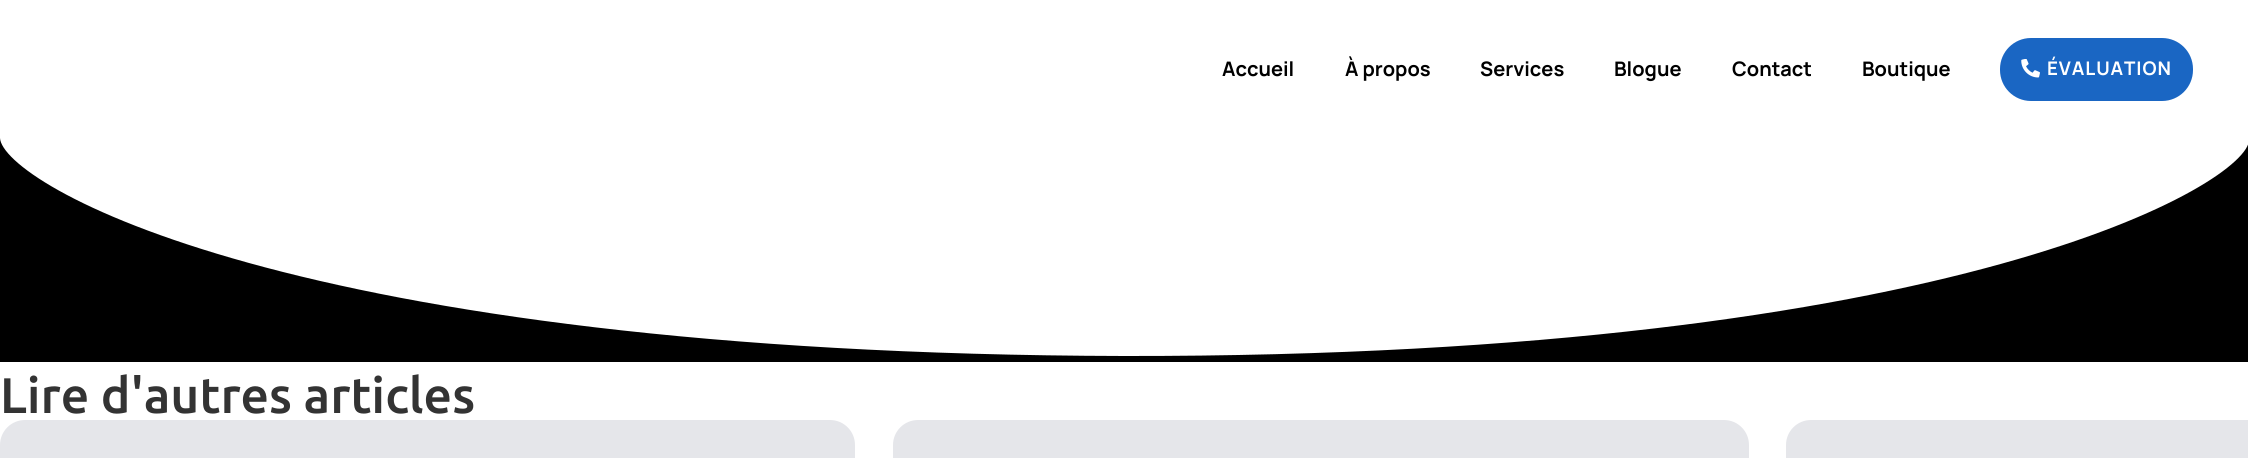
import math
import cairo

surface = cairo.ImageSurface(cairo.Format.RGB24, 2248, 458)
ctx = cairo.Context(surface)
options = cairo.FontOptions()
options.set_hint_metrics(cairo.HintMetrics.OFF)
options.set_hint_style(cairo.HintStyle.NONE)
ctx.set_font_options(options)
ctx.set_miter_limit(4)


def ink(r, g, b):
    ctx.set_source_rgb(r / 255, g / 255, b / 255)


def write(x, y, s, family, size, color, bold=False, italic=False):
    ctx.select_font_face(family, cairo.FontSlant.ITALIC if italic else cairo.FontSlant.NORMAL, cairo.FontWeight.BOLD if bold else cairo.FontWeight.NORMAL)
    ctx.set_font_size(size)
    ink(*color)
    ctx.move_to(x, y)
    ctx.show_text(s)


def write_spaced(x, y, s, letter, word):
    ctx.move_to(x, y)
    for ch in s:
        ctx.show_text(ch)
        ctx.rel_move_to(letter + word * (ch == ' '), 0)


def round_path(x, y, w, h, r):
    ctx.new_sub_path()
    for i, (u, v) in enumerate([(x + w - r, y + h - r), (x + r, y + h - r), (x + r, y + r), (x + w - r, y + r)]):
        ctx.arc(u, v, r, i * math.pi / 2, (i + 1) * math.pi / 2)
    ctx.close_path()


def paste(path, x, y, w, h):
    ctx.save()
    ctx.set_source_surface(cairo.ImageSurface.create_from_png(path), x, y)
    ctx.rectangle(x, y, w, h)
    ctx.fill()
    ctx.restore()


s1 = dict(family="Manrope", size=20, color=(0, 0, 0), bold=True)
s2 = dict(family="Ubuntu Medium", size=50, color=(51, 51, 51))

ink(255, 255, 255)
ctx.paint()
write(1222, 76, "Accueil", **s1)
write(1345, 76, "À propos", **s1)
write(1480, 76, "Services", **s1)
write(1614, 76, "Blogue", **s1)
write(1732, 76, "Contact", **s1)
write(1862, 76, "Boutique", **s1)
ink(26, 102, 195)
round_path(2000, 38, 193, 63, 31)
ctx.fill()
paste("pic1.png", 2021, 59, 19, 19)
ctx.set_font_size(18.75)
ink(255, 255, 255)
write_spaced(2047, 75, "ÉVALUATION", 0.9, 0)
ink(0, 0, 0)
ctx.new_path()
ctx.move_to(1124, 356)
ctx.curve_to(285, 354, 2, 182, 0, 138)
ctx.line_to(0, 362)
ctx.line_to(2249, 362)
ctx.line_to(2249, 140)
ctx.curve_to(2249, 181, 1964, 357, 1124, 356)
ctx.close_path()
ctx.fill()
write(0, 413, "Lire d'autres articles", **s2)
ink(229, 230, 234)
round_path(0, 420, 855, 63, 25)
ctx.fill()
round_path(893, 420, 856, 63, 25)
ctx.fill()
round_path(1786, 420, 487, 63, 25)
ctx.fill()
surface.write_to_png("screenshot.png")
